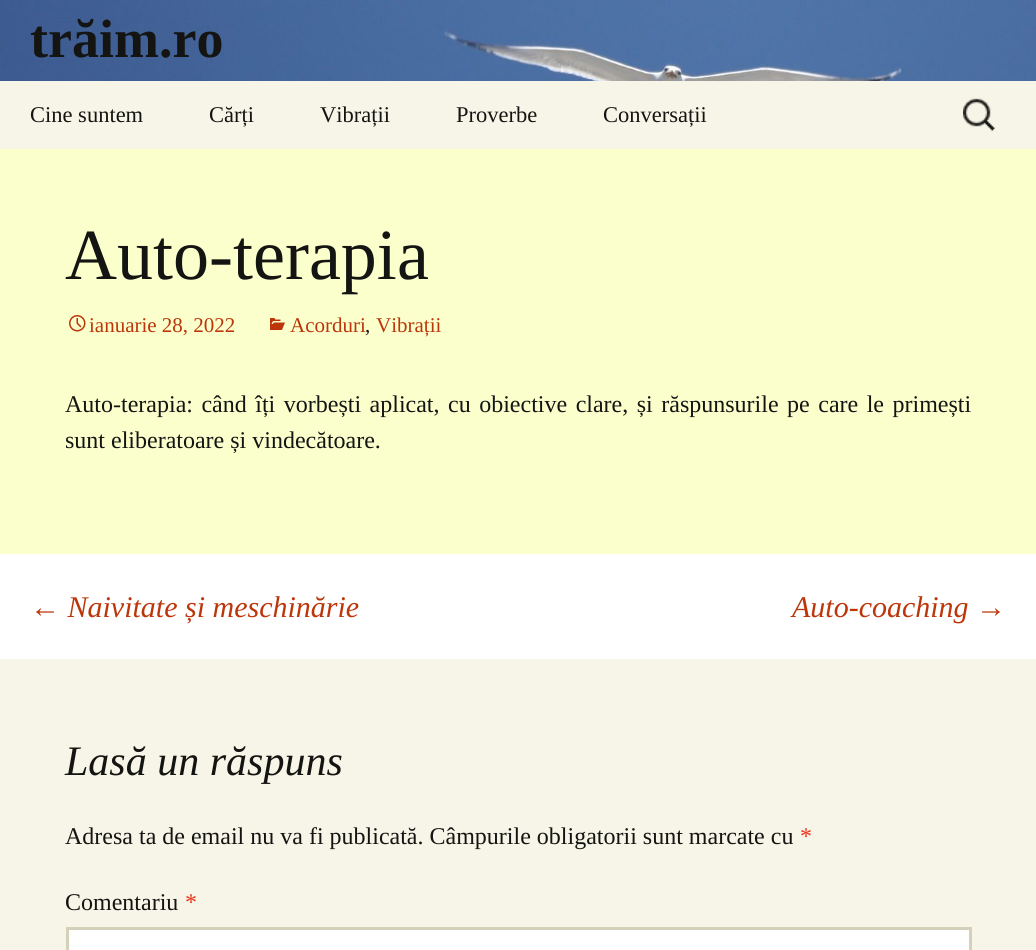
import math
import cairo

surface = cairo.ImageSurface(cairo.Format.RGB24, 1036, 950)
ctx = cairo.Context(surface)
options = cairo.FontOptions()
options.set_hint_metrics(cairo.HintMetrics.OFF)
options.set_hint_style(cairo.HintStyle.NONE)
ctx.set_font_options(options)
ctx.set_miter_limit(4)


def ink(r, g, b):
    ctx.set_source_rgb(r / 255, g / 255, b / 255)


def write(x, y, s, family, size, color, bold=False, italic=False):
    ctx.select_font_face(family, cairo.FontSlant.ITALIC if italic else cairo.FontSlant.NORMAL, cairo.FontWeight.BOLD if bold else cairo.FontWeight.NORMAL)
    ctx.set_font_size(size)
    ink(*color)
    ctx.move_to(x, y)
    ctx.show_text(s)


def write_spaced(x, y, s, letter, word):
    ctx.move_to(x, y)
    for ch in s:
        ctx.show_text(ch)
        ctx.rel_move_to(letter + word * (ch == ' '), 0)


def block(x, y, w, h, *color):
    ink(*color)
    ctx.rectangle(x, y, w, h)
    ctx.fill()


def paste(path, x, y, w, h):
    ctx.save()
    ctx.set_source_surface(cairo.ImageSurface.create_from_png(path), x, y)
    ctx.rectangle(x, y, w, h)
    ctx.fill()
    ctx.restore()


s1 = dict(family="Liberation Serif", size=54, color=(20, 20, 18), bold=True)
s2 = dict(family="Liberation Serif", size=22.5, color=(20, 20, 18))
s3 = dict(family="Liberation Serif", size=72, color=(20, 20, 18))
s4 = dict(family="Liberation Serif", size=21, color=(188, 54, 10))
s5 = dict(family="Liberation Serif", size=21, color=(20, 20, 18))
s6 = dict(family="Liberation Serif", size=24, color=(20, 20, 18))
s7 = dict(family="Liberation Serif", size=30, color=(188, 54, 10), italic=True)
s8 = dict(family="Liberation Serif", size=42, color=(20, 20, 18), italic=True)
s9 = dict(family="Liberation Serif", size=24, color=(237, 51, 28))

ink(255, 255, 255)
ctx.paint()
paste("pic1.png", 0, 0, 1036, 81)
write(30, 57, "trăim.ro", **s1)
block(0, 81, 1036, 68, 247, 245, 231)
write(30, 122, "Cine suntem", **s2)
write(209, 122, "Cărți", **s2)
write(320, 122, "Vibrații", **s2)
write(456, 122, "Proverbe", **s2)
write(603, 122, "Conversații", **s2)
paste("pic2.png", 963, 98, 32, 33)
block(0, 149, 1036, 405, 250, 255, 204)
write(65, 279, "Auto-terapia", **s3)
paste("pic3.png", 69, 315, 17, 17)
write(89, 332, "ianuarie 28, 2022", **s4)
paste("pic4.png", 270, 318, 15, 12)
write(290, 332, "Acorduri", **s4)
write(365, 332, ",", **s5)
write(376, 332, "Vibrații", **s4)
ctx.set_font_size(24)
ink(20, 20, 18)
write_spaced(65, 412, "Auto-terapia: când îți vorbești aplicat, cu obiective clare, și răspunsurile pe care le primești", 0, 2.5)
write(65, 448, "sunt eliberatoare și vindecătoare.", **s6)
write(30, 617, "← Naivitate și meschinărie", **s7)
write(792, 617, "Auto-coaching →", **s7)
block(0, 659, 1036, 291, 247, 245, 231)
write(65, 775, "Lasă un răspuns", **s8)
write(65, 844, "Adresa ta de email nu va fi publicată. Câmpurile obligatorii sunt marcate cu", **s6)
write(800, 844, "*", **s9)
write(65, 910, "Comentariu", **s6)
write(185, 910, "*", **s9)
ink(255, 255, 255)
ctx.rectangle(67.5, 928.5, 903, 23)
ctx.fill_preserve()
ink(212, 208, 186)
ctx.set_line_width(3)
ctx.stroke()
surface.write_to_png("screenshot.png")
